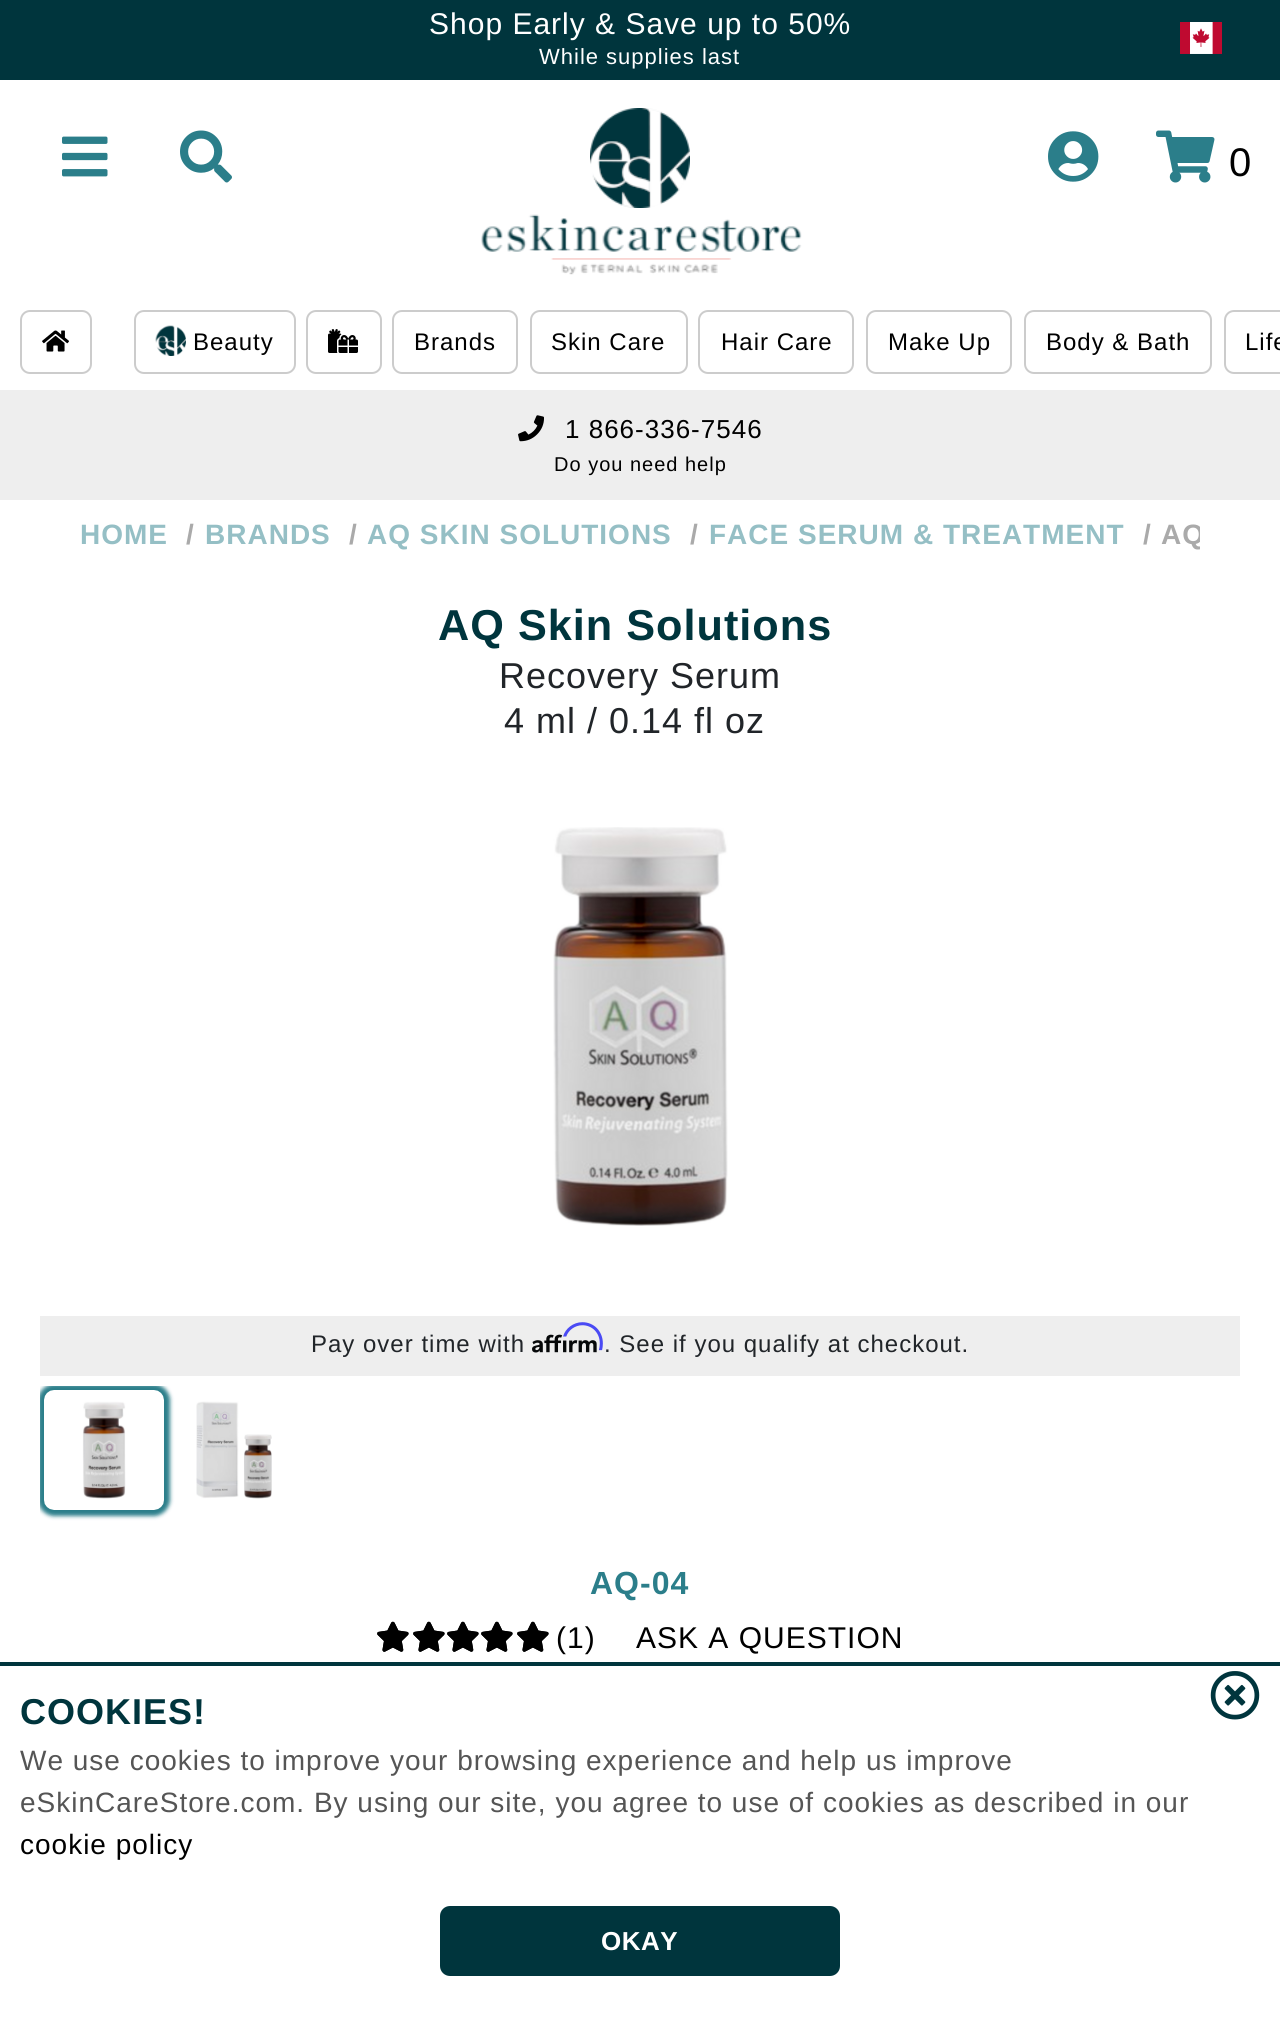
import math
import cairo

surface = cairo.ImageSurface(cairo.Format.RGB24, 1280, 2035)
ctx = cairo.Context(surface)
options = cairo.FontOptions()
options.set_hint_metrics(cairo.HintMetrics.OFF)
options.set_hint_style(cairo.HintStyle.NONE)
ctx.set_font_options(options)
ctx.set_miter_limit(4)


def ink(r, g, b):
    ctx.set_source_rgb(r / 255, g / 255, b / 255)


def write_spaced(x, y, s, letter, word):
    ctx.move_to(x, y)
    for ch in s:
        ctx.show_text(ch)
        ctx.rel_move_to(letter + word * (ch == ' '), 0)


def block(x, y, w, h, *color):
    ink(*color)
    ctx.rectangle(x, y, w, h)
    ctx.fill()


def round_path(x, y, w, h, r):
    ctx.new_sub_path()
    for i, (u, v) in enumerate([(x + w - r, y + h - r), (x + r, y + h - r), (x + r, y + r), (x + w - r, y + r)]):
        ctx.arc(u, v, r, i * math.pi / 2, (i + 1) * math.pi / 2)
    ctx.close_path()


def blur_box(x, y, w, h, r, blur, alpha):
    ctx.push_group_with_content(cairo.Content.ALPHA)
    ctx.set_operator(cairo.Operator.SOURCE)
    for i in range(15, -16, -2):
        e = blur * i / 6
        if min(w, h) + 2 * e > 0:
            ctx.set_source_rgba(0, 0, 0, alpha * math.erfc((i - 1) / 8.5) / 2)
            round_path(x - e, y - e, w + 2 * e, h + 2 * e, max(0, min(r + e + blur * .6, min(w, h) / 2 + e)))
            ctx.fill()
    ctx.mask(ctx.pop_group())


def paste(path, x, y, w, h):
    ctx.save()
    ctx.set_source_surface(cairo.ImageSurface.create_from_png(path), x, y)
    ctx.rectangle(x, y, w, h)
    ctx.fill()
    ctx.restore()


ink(255, 255, 255)
ctx.paint()
block(0, 0, 1280, 80, 0, 53, 61)
ctx.select_font_face("Liberation Sans")
ctx.set_font_size(30)
ink(255, 255, 255)
write_spaced(429, 34, "Shop Early & Save up to 50%", 1, 0)
ctx.set_font_size(22)
write_spaced(539, 64, "While supplies last", 1, 0)
paste("pic1.png", 1180, 22, 42, 32)
paste("pic2.png", 590, 108, 100, 100)
paste("pic3.png", 481, 214, 321, 61)
paste("pic4.png", 62, 136, 46, 41)
paste("pic5.png", 180, 130, 52, 53)
paste("pic6.png", 1048, 131, 51, 51)
paste("pic7.png", 1156, 130, 59, 53)
ctx.set_font_size(40)
ink(0, 0, 0)
write_spaced(1229, 176, "0", 1, 0)
round_path(21, 311, 70, 62, 9)
ink(204, 204, 204)
ctx.stroke()
paste("pic8.png", 42, 330, 27, 22)
round_path(135, 311, 160, 62, 9)
ctx.stroke()
paste("pic9.png", 155, 325, 31, 31)
ctx.set_font_size(24)
ink(0, 0, 0)
write_spaced(193, 350, "Beauty", 1, 0)
round_path(307, 311, 74, 62, 9)
ink(204, 204, 204)
ctx.stroke()
paste("pic10.png", 328, 329, 30, 24)
round_path(393, 311, 124, 62, 9)
ctx.stroke()
ink(0, 0, 0)
write_spaced(414, 350, "Brands", 1, 0)
round_path(531, 311, 156, 62, 9)
ink(204, 204, 204)
ctx.stroke()
ink(0, 0, 0)
write_spaced(551, 350, "Skin Care", 1, 0)
round_path(699, 311, 154, 62, 9)
ink(204, 204, 204)
ctx.stroke()
ink(0, 0, 0)
write_spaced(721, 350, "Hair Care", 1, 0)
round_path(867, 311, 144, 62, 9)
ink(204, 204, 204)
ctx.stroke()
ink(0, 0, 0)
write_spaced(888, 350, "Make Up", 1, 0)
round_path(1025, 311, 186, 62, 9)
ink(204, 204, 204)
ctx.stroke()
ink(0, 0, 0)
write_spaced(1046, 350, "Body & Bath", 1, 0)
round_path(1225, 311, 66, 62, 9)
ink(204, 204, 204)
ctx.stroke()
ink(0, 0, 0)
write_spaced(1245, 350, "Life", 1, 0)
block(0, 390, 1280, 110, 238, 238, 238)
paste("pic11.png", 518, 415, 26, 27)
ctx.set_font_size(26)
ink(0, 0, 0)
write_spaced(565, 438, "1 866-336-7546", 1, 0)
ctx.set_font_size(20)
write_spaced(554, 471, "Do you need help", 1, 0)
ctx.select_font_face("Liberation Sans", cairo.FontSlant.NORMAL, cairo.FontWeight.BOLD)
ctx.set_font_size(28)
ink(149, 191, 197)
write_spaced(80, 544, "HOME", 1, 0)
ink(170, 170, 170)
write_spaced(186, 544, "/", 1, 0)
ink(149, 191, 197)
write_spaced(205, 544, "BRANDS", 1, 0)
ink(170, 170, 170)
write_spaced(349, 544, "/", 1, 0)
ink(149, 191, 197)
write_spaced(367, 544, "AQ SKIN SOLUTIONS", 1, 0)
ink(170, 170, 170)
write_spaced(690, 544, "/", 1, 0)
ink(149, 191, 197)
write_spaced(709, 544, "FACE SERUM & TREATMENT", 1, 0)
ink(170, 170, 170)
write_spaced(1143, 544, "/", 1, 0)
ctx.save()
ctx.rectangle(80, 470, 1120, 130)
ctx.clip()
write_spaced(1161, 544, "AQ", 1, 0)
ctx.restore()
ctx.set_font_size(43.25)
ink(0, 53, 61)
write_spaced(438, 640, "AQ Skin Solutions", 1, 0)
ctx.select_font_face("Liberation Sans")
ctx.set_font_size(36)
ink(33, 37, 41)
write_spaced(499, 688, "Recovery Serum", 1, 0)
write_spaced(504, 733, "4 ml / 0.14 fl oz", 1, 0)
paste("pic12.png", 553, 827, 175, 399)
block(40, 1316, 1200, 60, 238, 238, 238)
ctx.set_font_size(24)
ink(33, 37, 41)
write_spaced(311, 1352, "Pay over time with", 1, 0)
paste("pic14.png", 532, 1334, 65, 19)
paste("pic13.png", 563, 1322, 40, 29)
write_spaced(604, 1352, ". See if you qualify at checkout.", 1, 0)
ctx.save()
ctx.rectangle(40, 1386, 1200, 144)
ctx.clip()
ink(43, 126, 138)
blur_box(38, 1384, 132, 132, 16, 2, 1)
ctx.restore()
paste("pic15.png", 44, 1390, 120, 120)
paste("pic16.png", 196, 1401, 76, 98)
ctx.select_font_face("Liberation Sans", cairo.FontSlant.NORMAL, cairo.FontWeight.BOLD)
ctx.set_font_size(32)
ink(43, 126, 138)
write_spaced(590, 1594, "AQ-04", 1, 0)
paste("pic17.png", 377, 1621, 32, 31)
paste("pic17.png", 413, 1621, 32, 31)
paste("pic17.png", 447, 1621, 32, 31)
paste("pic17.png", 481, 1621, 32, 31)
paste("pic17.png", 517, 1621, 32, 31)
paste("pic18.png", 377, 1621, 32, 31)
paste("pic18.png", 413, 1621, 32, 31)
paste("pic18.png", 447, 1621, 32, 31)
paste("pic18.png", 481, 1621, 32, 31)
paste("pic18.png", 517, 1621, 32, 31)
ctx.select_font_face("Liberation Sans")
ctx.set_font_size(30)
ink(0, 0, 0)
write_spaced(556, 1648, "(1)", 1, 0)
write_spaced(636, 1648, "ASK A QUESTION", 1, 0)
block(0, 1662, 1280, 4, 0, 53, 61)
ctx.select_font_face("Liberation Sans", cairo.FontSlant.NORMAL, cairo.FontWeight.BOLD)
ctx.set_font_size(36)
write_spaced(20, 1724, "COOKIES!", 1, 0)
ctx.select_font_face("Liberation Sans")
ctx.set_font_size(28)
ink(85, 85, 85)
write_spaced(20, 1770, "We use cookies to improve your browsing experience and help us improve", 1, 0)
write_spaced(20, 1812, "eSkinCareStore.com. By using our site, you agree to use of cookies as described in our", 1, 0)
ink(0, 0, 0)
write_spaced(20, 1854, "cookie policy", 1, 0)
paste("pic19.png", 1210, 1671, 50, 49)
ink(0, 53, 61)
round_path(440, 1906, 400, 70, 10)
ctx.fill()
ctx.select_font_face("Liberation Sans", cairo.FontSlant.NORMAL, cairo.FontWeight.BOLD)
ctx.set_font_size(26)
ink(255, 255, 255)
write_spaced(601, 1950, "OKAY", 0.5, 0)
surface.write_to_png("screenshot.png")
